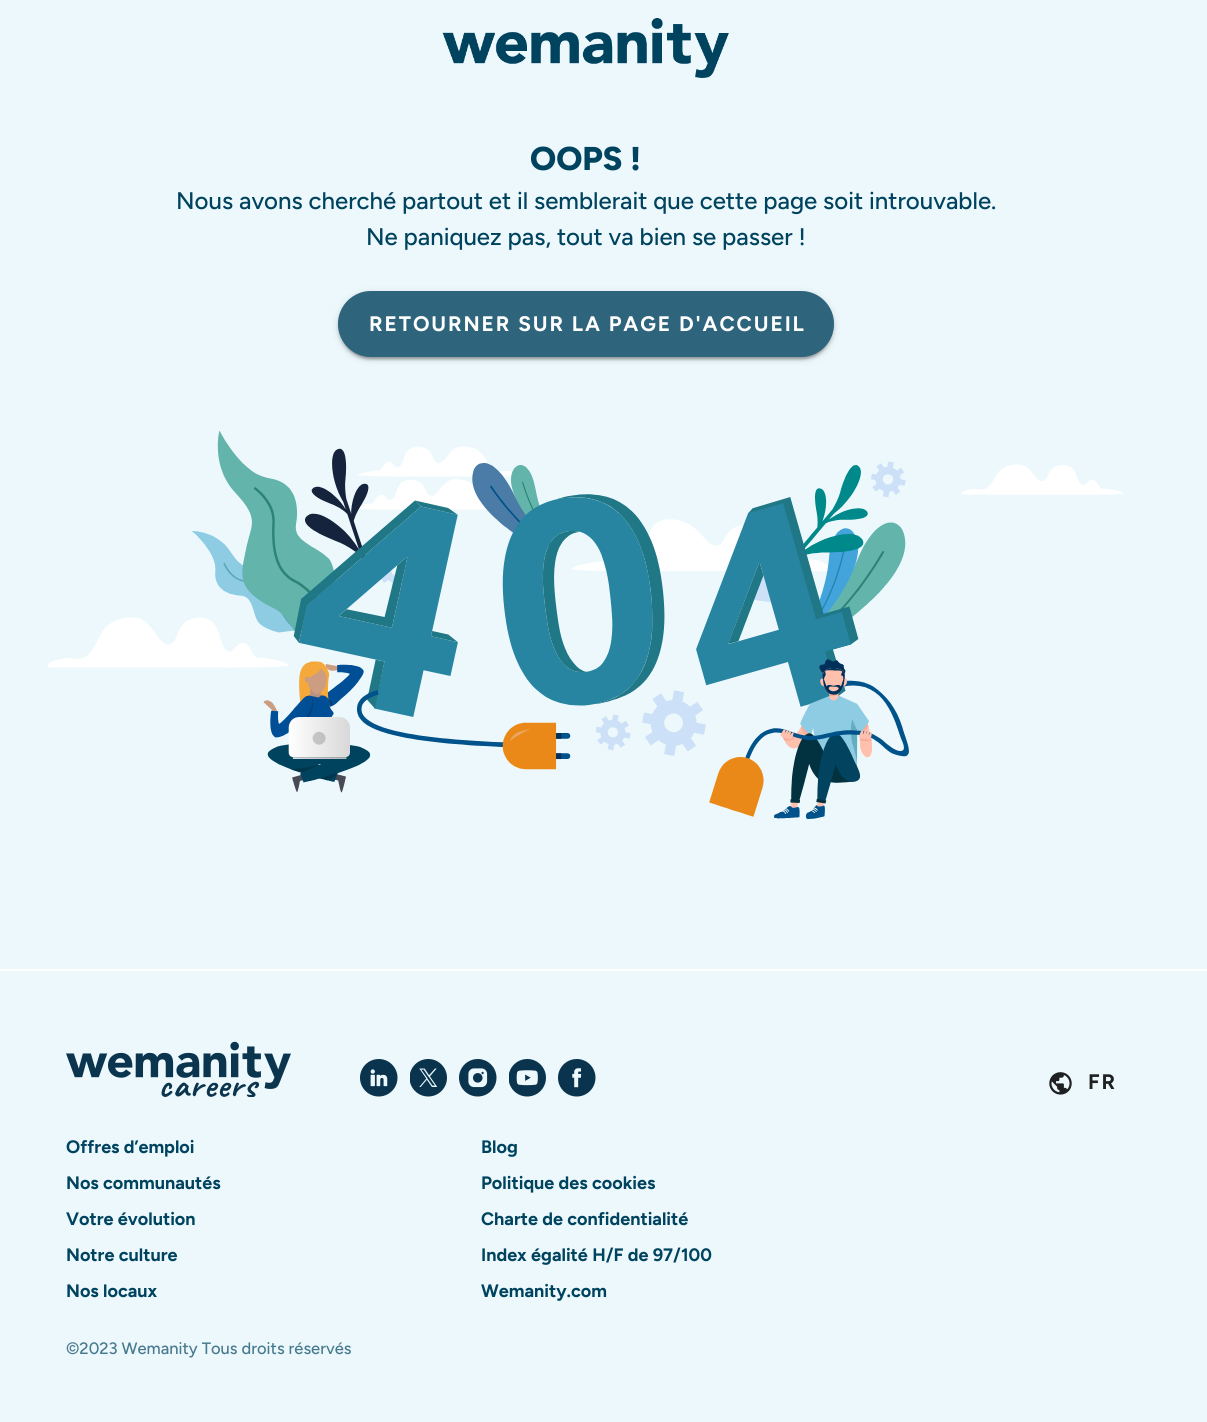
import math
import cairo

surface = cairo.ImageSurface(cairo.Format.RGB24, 1207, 1422)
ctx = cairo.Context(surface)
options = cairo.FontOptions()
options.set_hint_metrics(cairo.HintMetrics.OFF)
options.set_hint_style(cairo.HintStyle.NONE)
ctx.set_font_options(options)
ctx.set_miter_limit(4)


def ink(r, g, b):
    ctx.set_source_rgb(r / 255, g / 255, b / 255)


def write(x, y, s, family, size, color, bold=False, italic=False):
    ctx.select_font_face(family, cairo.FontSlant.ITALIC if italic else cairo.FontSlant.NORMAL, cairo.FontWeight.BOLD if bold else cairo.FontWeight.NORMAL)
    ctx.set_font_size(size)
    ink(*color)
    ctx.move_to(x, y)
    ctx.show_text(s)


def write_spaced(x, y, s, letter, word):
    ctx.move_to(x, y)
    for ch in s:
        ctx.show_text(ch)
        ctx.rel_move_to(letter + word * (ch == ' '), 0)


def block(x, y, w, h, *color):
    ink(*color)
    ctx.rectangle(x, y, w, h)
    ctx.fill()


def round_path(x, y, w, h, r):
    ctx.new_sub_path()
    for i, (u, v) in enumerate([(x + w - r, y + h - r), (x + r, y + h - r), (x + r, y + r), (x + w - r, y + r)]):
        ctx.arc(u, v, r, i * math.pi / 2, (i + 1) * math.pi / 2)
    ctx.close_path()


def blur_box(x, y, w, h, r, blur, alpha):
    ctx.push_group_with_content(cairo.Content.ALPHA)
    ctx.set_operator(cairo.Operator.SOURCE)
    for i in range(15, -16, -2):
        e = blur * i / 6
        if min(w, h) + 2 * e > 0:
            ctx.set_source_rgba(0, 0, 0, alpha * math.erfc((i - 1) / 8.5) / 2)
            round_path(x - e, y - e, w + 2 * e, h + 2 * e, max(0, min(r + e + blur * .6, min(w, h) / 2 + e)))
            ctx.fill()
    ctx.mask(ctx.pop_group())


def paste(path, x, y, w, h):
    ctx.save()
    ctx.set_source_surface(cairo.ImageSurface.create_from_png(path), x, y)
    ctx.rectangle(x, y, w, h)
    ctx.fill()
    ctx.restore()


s1 = dict(family="Figtree ExtraBold", size=33, color=(0, 67, 95))
s2 = dict(family="Figtree Medium", size=24, color=(0, 67, 95))
s3 = dict(family="Figtree", size=18, color=(0, 67, 95), bold=True)
s4 = dict(family="Figtree Medium", size=16.5, color=(71, 122, 142))

ink(236, 248, 252)
ctx.paint()
paste("pic1.png", 442, 18, 287, 60)
write(530, 170, "OOPS !", **s1)
write(176, 209, "Nous avons cherché partout et il semblerait que cette page soit introuvable.", **s2)
write(366, 245, "Ne paniquez pas, tout va bien se passer !", **s2)
ink(0, 0, 0)
blur_box(338, 293, 496, 66, 33, 4, 0.12)
blur_box(338, 294, 496, 66, 33, 1.5, 0.14)
blur_box(341, 299, 490, 60, 30, 1, 0.2)
ink(0, 67, 95)
round_path(338, 291, 496, 66, 33)
ctx.fill()
ctx.set_source_rgba(1, 1, 1, 0.18)
round_path(338, 291, 496, 66, 33)
ctx.fill()
ctx.select_font_face("Figtree", cairo.FontSlant.NORMAL, cairo.FontWeight.BOLD)
ctx.set_font_size(21)
ink(255, 255, 255)
write_spaced(369, 331, "RETOURNER SUR LA PAGE D'ACCUEIL", 1.9, 0)
paste("pic2.png", 48, 431, 1075, 388)
block(0, 969, 1207, 2, 255, 255, 255)
paste("pic3.png", 66, 1041, 225, 56)
paste("pic4.png", 360, 1059, 38, 38)
paste("pic5.png", 410, 1059, 37, 38)
paste("pic6.png", 459, 1059, 38, 38)
paste("pic7.png", 509, 1059, 37, 38)
paste("pic8.png", 558, 1059, 38, 38)
paste("pic9.png", 1049, 1072, 23, 23)
ink(31, 32, 33)
write_spaced(1088, 1089, "FR", 1.9, 0)
write(66, 1153, "Offres d’emploi", **s3)
write(481, 1153, "Blog", **s3)
write(66, 1189, "Nos communautés", **s3)
write(481, 1189, "Politique des cookies", **s3)
write(66, 1225, "Votre évolution", **s3)
write(481, 1225, "Charte de confidentialité", **s3)
write(66, 1261, "Notre culture", **s3)
write(481, 1261, "Index égalité H/F de 97/100", **s3)
write(66, 1297, "Nos locaux", **s3)
write(481, 1297, "Wemanity.com", **s3)
write(66, 1354, "©2023 Wemanity Tous droits réservés", **s4)
surface.write_to_png("screenshot.png")
